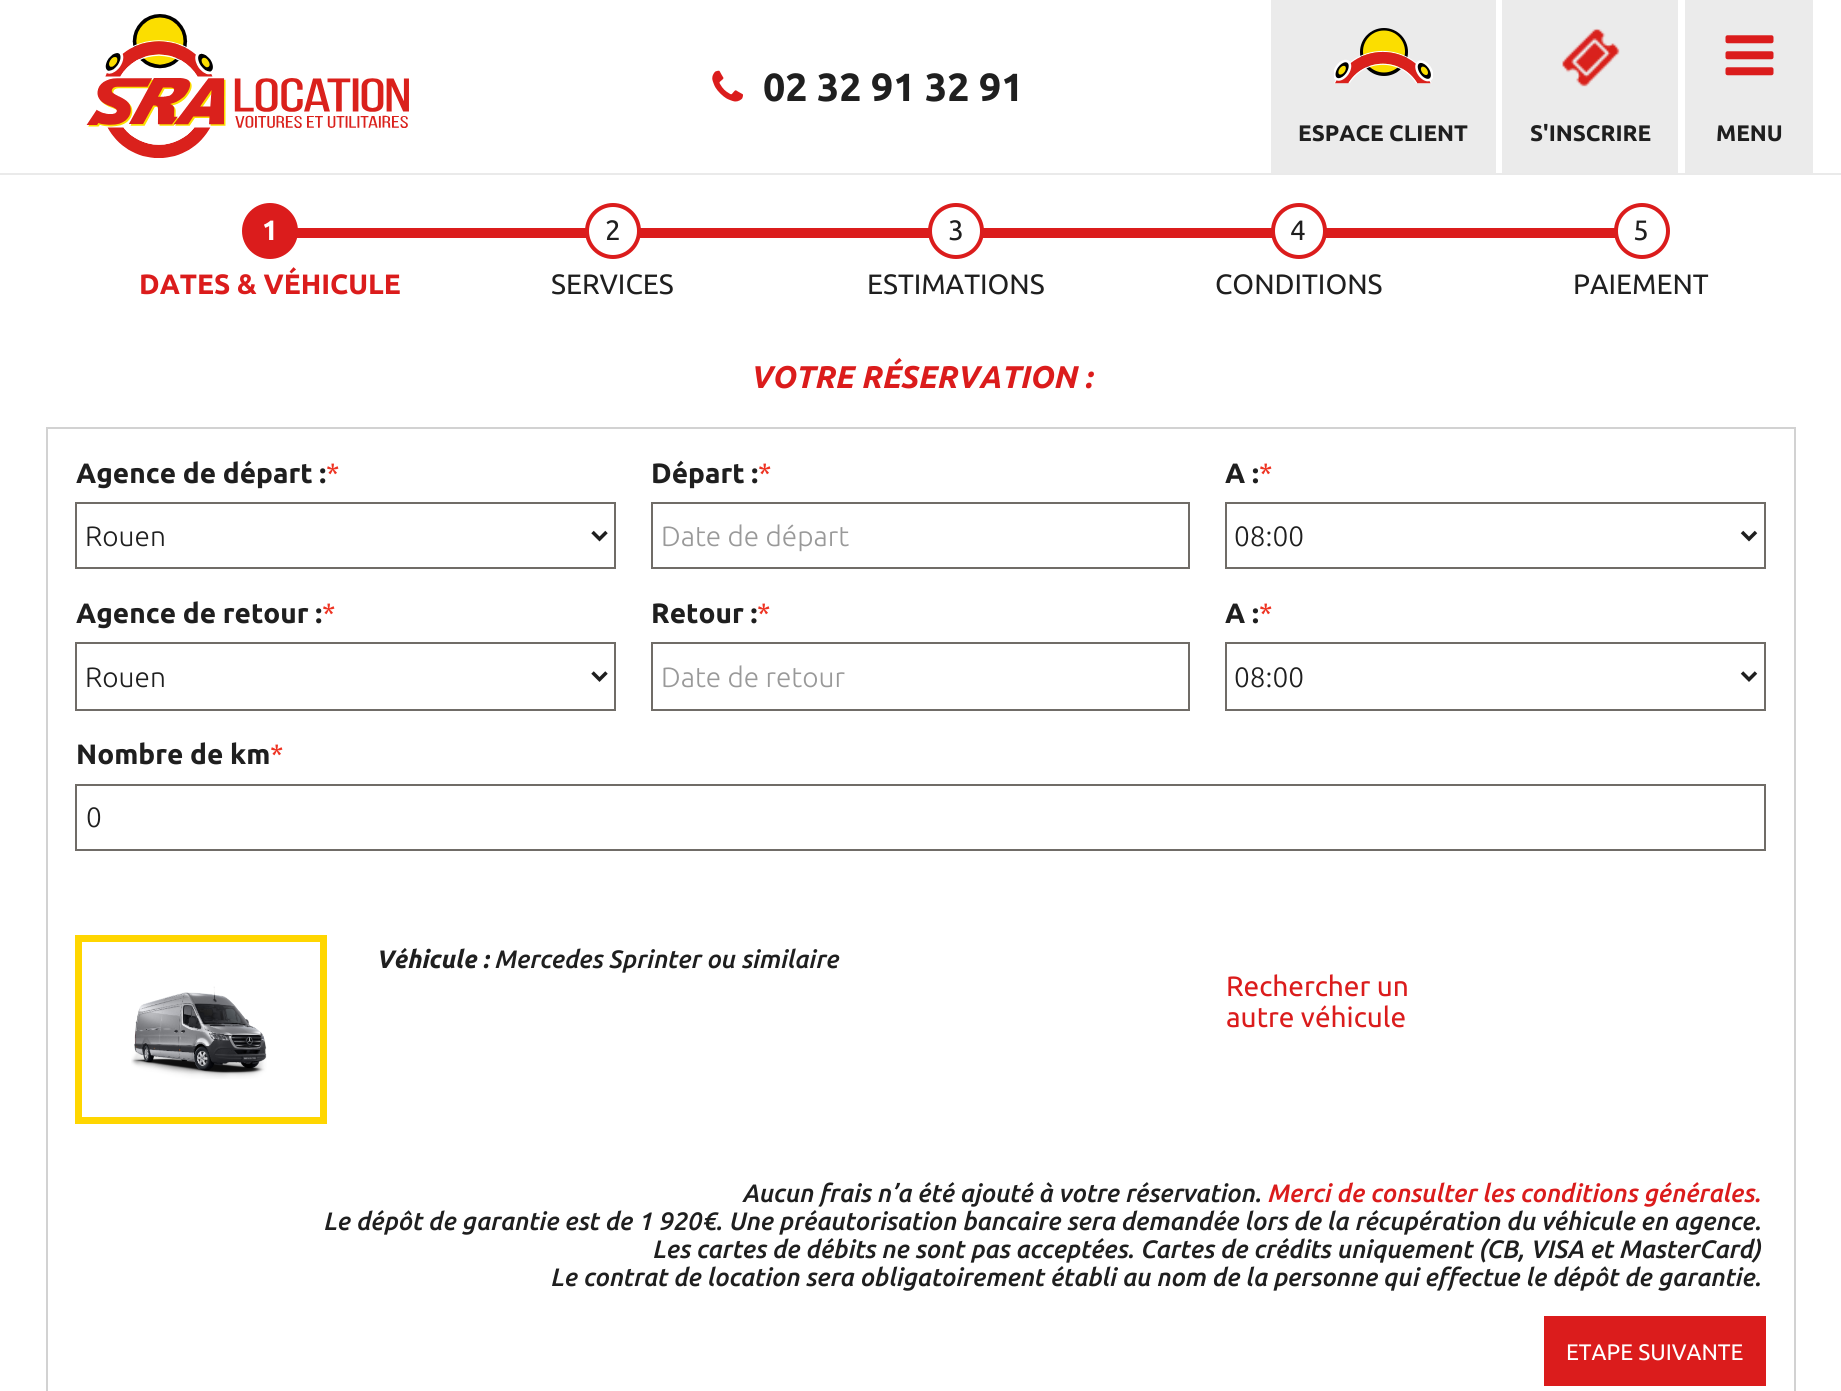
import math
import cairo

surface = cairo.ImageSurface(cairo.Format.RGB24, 1841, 1391)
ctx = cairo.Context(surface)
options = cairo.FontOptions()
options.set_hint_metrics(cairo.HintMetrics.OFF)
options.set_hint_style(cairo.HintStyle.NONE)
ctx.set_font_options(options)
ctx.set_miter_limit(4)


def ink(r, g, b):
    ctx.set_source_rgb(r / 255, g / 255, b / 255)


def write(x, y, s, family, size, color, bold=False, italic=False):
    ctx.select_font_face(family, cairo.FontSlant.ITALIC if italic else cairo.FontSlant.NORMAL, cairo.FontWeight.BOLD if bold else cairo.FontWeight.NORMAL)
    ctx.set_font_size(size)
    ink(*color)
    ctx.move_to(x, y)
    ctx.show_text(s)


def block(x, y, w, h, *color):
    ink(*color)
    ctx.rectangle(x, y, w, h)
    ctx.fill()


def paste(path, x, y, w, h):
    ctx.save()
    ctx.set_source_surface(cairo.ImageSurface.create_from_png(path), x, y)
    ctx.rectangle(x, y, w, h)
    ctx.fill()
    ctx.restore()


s1 = dict(family="Ubuntu", size=39.25, color=(31, 31, 31), bold=True)
s2 = dict(family="Ubuntu", size=22.5, color=(31, 31, 31), bold=True)
s3 = dict(family="Ubuntu", size=28, color=(255, 255, 255), bold=True)
s4 = dict(family="Ubuntu", size=28, color=(219, 28, 28), bold=True)
s5 = dict(family="Ubuntu", size=28, color=(31, 31, 31))
s6 = dict(family="Ubuntu", size=31.4, color=(219, 28, 28), bold=True, italic=True)
s7 = dict(family="Ubuntu", size=28, color=(31, 31, 31), bold=True)
s8 = dict(family="Ubuntu", size=28, color=(238, 51, 34))
s9 = dict(family="Ubuntu Light", size=28, color=(31, 31, 31))
s10 = dict(family="Ubuntu Light", size=28, color=(153, 153, 153))
s11 = dict(family="Ubuntu", size=25.2, color=(31, 31, 31), bold=True, italic=True)
s12 = dict(family="Ubuntu Medium", size=25.2, color=(31, 31, 31), italic=True)
s13 = dict(family="Ubuntu", size=28, color=(219, 28, 28))
s14 = dict(family="Ubuntu Medium", size=25.2, color=(219, 28, 28), italic=True)
s15 = dict(family="Ubuntu", size=22.5, color=(255, 255, 255))

ink(255, 255, 255)
ctx.paint()
block(0, 173, 1841, 2, 234, 234, 234)
paste("pic1.png", 86, 14, 323, 144)
paste("pic2.png", 712, 70, 31, 32)
write(763, 101, "02 32 91 32 91", **s1)
block(1271, 0, 225, 173, 235, 235, 235)
paste("pic3.png", 1334, 28, 99, 56)
write(1298, 141, "ESPACE CLIENT", **s2)
block(1502, 0, 176, 173, 235, 235, 235)
paste("pic4.png", 1562, 28, 58, 59)
write(1530, 141, "S'INSCRIRE", **s2)
block(1685, 0, 128, 173, 235, 235, 235)
paste("pic5.png", 1725, 35, 49, 41)
write(1716, 141, "MENU", **s2)
block(297, 228, 289, 10, 219, 28, 28)
ctx.new_path()
ctx.arc(270, 231, 26, 0, 2 * math.pi)
ctx.fill_preserve()
ctx.set_line_width(4)
ctx.stroke()
write(262, 240, "1", **s3)
write(139, 294, "DATES & VÉHICULE", **s4)
block(640, 228, 289, 10, 219, 28, 28)
ink(255, 255, 255)
ctx.new_path()
ctx.arc(613, 231, 26, 0, 2 * math.pi)
ctx.fill_preserve()
ink(219, 28, 28)
ctx.stroke()
write(605, 240, "2", **s5)
write(551, 294, "SERVICES", **s5)
block(983, 228, 289, 10, 219, 28, 28)
ink(255, 255, 255)
ctx.new_path()
ctx.arc(956, 231, 26, 0, 2 * math.pi)
ctx.fill_preserve()
ink(219, 28, 28)
ctx.stroke()
write(948, 240, "3", **s5)
write(867, 294, "ESTIMATIONS", **s5)
block(1326, 228, 289, 10, 219, 28, 28)
ink(255, 255, 255)
ctx.new_path()
ctx.arc(1299, 231, 26, 0, 2 * math.pi)
ctx.fill_preserve()
ink(219, 28, 28)
ctx.stroke()
write(1290, 240, "4", **s5)
write(1215, 294, "CONDITIONS", **s5)
ink(255, 255, 255)
ctx.new_path()
ctx.arc(1642, 231, 26, 0, 2 * math.pi)
ctx.fill_preserve()
ink(219, 28, 28)
ctx.stroke()
write(1633, 240, "5", **s5)
write(1573, 294, "PAIEMENT", **s5)
write(750, 388, "VOTRE RÉSERVATION :", **s6)
ctx.rectangle(47, 428, 1748, 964)
ink(210, 210, 210)
ctx.set_line_width(2)
ctx.stroke()
write(76, 483, "Agence de départ :", **s7)
write(326, 483, "*", **s8)
ctx.rectangle(76, 503, 539, 65)
ink(112, 108, 103)
ctx.stroke()
ctx.new_path()
ctx.move_to(592.5, 532)
ctx.line_to(599.5, 539)
ctx.line_to(606.5, 532)
ink(31, 31, 31)
ctx.set_line_width(3.5)
ctx.stroke()
write(85, 546, "Rouen", **s9)
write(651, 483, "Départ :", **s7)
write(758, 483, "*", **s8)
ctx.rectangle(652, 503, 537, 65)
ink(112, 108, 103)
ctx.set_line_width(2)
ctx.stroke()
write(661, 546, "Date de départ", **s10)
write(1225, 483, "A :", **s7)
write(1259, 483, "*", **s8)
ctx.rectangle(1226, 503, 539, 65)
ink(112, 108, 103)
ctx.stroke()
ctx.new_path()
ctx.move_to(1742, 532)
ctx.line_to(1749, 539)
ctx.line_to(1756, 532)
ink(31, 31, 31)
ctx.set_line_width(3.5)
ctx.stroke()
write(1234, 546, "08:00", **s9)
write(76, 623, "Agence de retour :", **s7)
write(322, 623, "*", **s8)
ctx.rectangle(76, 643, 539, 67)
ink(112, 108, 103)
ctx.set_line_width(2)
ctx.stroke()
ctx.new_path()
ctx.move_to(592.5, 672.5)
ctx.line_to(599.5, 679.5)
ctx.line_to(606.5, 672.5)
ink(31, 31, 31)
ctx.set_line_width(3.5)
ctx.stroke()
write(85, 687, "Rouen", **s9)
write(651, 623, "Retour :", **s7)
write(757, 623, "*", **s8)
ctx.rectangle(652, 643, 537, 67)
ink(112, 108, 103)
ctx.set_line_width(2)
ctx.stroke()
write(661, 687, "Date de retour", **s10)
write(1225, 623, "A :", **s7)
write(1259, 623, "*", **s8)
ctx.rectangle(1226, 643, 539, 67)
ink(112, 108, 103)
ctx.stroke()
ctx.new_path()
ctx.move_to(1742, 672.5)
ctx.line_to(1749, 679.5)
ctx.line_to(1756, 672.5)
ink(31, 31, 31)
ctx.set_line_width(3.5)
ctx.stroke()
write(1234, 687, "08:00", **s9)
write(76, 764, "Nombre de km", **s7)
write(270, 764, "*", **s8)
ctx.rectangle(76, 785, 1689, 65)
ink(112, 108, 103)
ctx.set_line_width(2)
ctx.stroke()
write(86, 827, "0", **s9)
ctx.rectangle(78.5, 938.5, 245, 182)
ink(255, 214, 0)
ctx.set_line_width(7)
ctx.stroke()
paste("pic6.png", 131, 986, 136, 93)
write(376, 968, "Véhicule :", **s11)
write(494, 968, "Mercedes Sprinter ou similaire", **s12)
write(1226, 996, "Rechercher un", **s13)
write(1226, 1027, "autre véhicule", **s13)
write(742, 1202, "Aucun frais n’a été ajouté à votre réservation.", **s12)
write(1267, 1202, "Merci de consulter les conditions générales.", **s14)
write(323, 1230, "Le dépôt de garantie est de 1 920€. Une préautorisation bancaire sera demandée lors de la récupération du véhicule en agence.", **s12)
write(652, 1258, "Les cartes de débits ne sont pas acceptées. Cartes de crédits uniquement (CB, VISA et MasterCard)", **s12)
write(550, 1286, "Le contrat de location sera obligatoirement établi au nom de la personne qui effectue le dépôt de garantie.", **s12)
block(1544, 1316, 222, 70, 219, 28, 28)
write(1566, 1360, "ETAPE SUIVANTE", **s15)
surface.write_to_png("screenshot.png")
